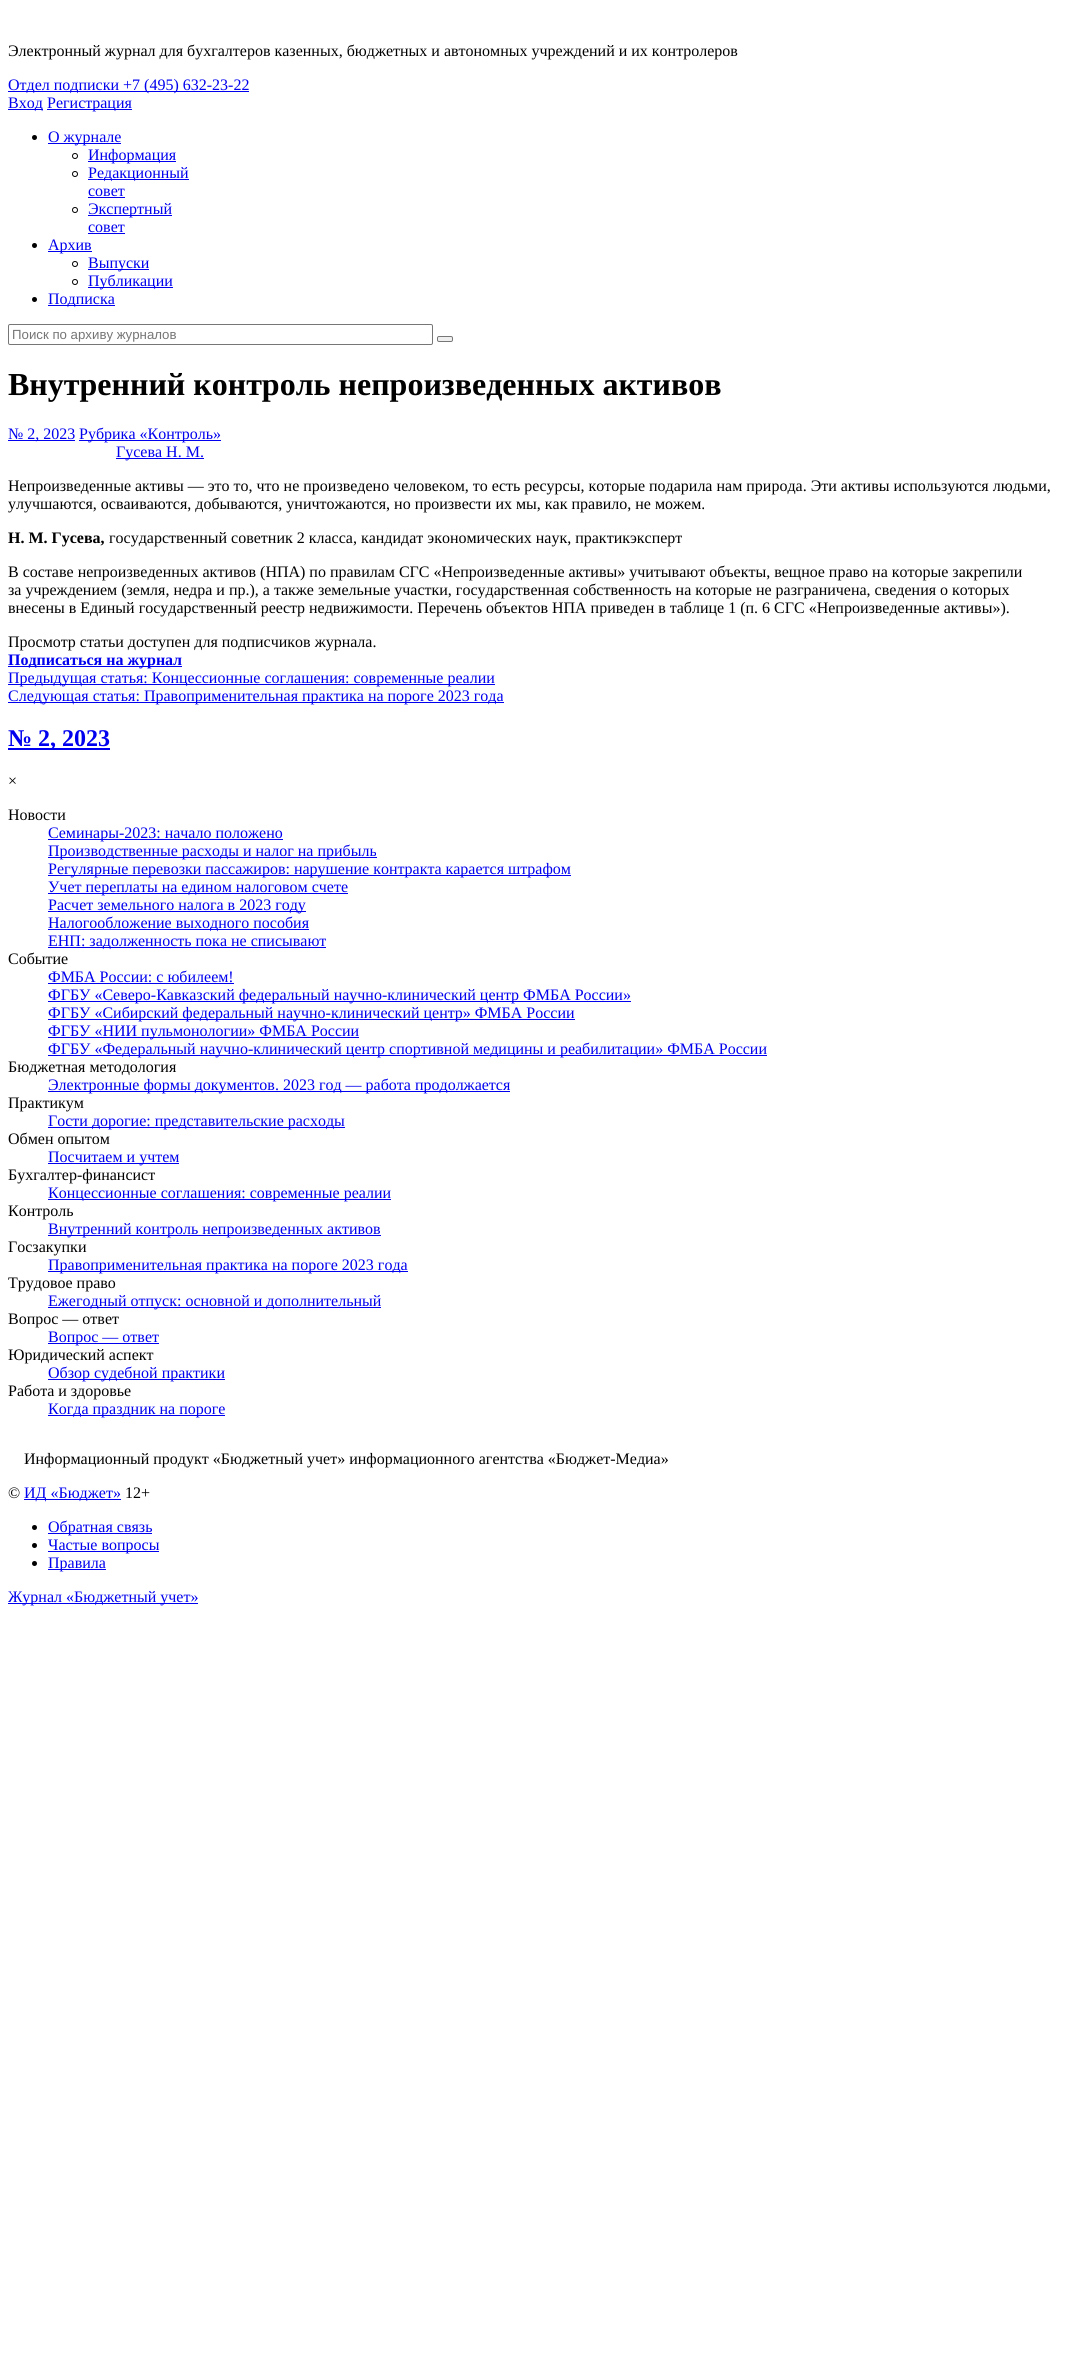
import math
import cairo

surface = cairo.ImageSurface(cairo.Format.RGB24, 1074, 2361)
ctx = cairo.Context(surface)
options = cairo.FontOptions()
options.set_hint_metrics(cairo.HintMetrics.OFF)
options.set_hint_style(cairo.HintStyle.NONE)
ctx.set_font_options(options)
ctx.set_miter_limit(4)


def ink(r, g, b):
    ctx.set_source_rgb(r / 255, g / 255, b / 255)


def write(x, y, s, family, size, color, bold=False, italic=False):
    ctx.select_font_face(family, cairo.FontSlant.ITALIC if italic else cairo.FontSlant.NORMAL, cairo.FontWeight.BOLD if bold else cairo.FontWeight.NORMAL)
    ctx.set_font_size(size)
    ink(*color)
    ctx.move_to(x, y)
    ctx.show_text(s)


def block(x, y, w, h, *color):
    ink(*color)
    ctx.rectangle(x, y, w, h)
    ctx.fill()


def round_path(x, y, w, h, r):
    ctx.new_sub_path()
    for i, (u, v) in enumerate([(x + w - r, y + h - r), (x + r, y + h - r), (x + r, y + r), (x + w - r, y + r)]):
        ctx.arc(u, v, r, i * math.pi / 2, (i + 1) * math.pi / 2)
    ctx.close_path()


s1 = dict(family="Liberation Serif", size=16, color=(0, 0, 0))
s2 = dict(family="Liberation Serif", size=16, color=(0, 0, 238))
s3 = dict(family="Liberation Sans", size=13.25, color=(117, 117, 117))
s4 = dict(family="Liberation Serif", size=32, color=(0, 0, 0), bold=True)
s5 = dict(family="Liberation Serif", size=16, color=(0, 0, 0), bold=True)
s6 = dict(family="Liberation Serif", size=16, color=(0, 0, 238), bold=True)
s7 = dict(family="Liberation Serif", size=24, color=(0, 0, 238), bold=True)

ink(255, 255, 255)
ctx.paint()
write(8, 56, "Электронный журнал для бухгалтеров казенных, бюджетных и автономных учреждений и их контролеров", **s1)
block(8, 91, 241, 1, 0, 0, 238)
write(8, 90, "Отдел подписки +7 (495) 632-23-22", **s2)
block(8, 109, 35, 1, 0, 0, 238)
write(8, 108, "Вход", **s2)
block(47, 109, 85, 1, 0, 0, 238)
write(47, 108, "Регистрация", **s2)
ink(0, 0, 0)
ctx.new_path()
ctx.arc(34.5, 137.5, 2.5, 0, 2 * math.pi)
ctx.fill()
block(48, 143, 73, 1, 0, 0, 238)
write(48, 142, "О журнале", **s2)
ctx.new_path()
ctx.arc(75, 156, 2.5, 0, 2 * math.pi)
ink(0, 0, 0)
ctx.set_line_width(1)
ctx.stroke()
block(88, 161, 88, 1, 0, 0, 238)
write(88, 160, "Информация", **s2)
ctx.new_path()
ctx.arc(75, 174, 2.5, 0, 2 * math.pi)
ink(0, 0, 0)
ctx.stroke()
block(88, 179, 101, 1, 0, 0, 238)
write(88, 178, "Редакционный", **s2)
write(88, 196, "совет", **s2)
block(88, 197, 37, 1, 0, 0, 238)
ctx.new_path()
ctx.arc(75, 210, 2.5, 0, 2 * math.pi)
ink(0, 0, 0)
ctx.stroke()
block(88, 215, 84, 1, 0, 0, 238)
write(88, 214, "Экспертный", **s2)
write(88, 232, "совет", **s2)
block(88, 233, 37, 1, 0, 0, 238)
ink(0, 0, 0)
ctx.new_path()
ctx.arc(34.5, 245.5, 2.5, 0, 2 * math.pi)
ctx.fill()
block(48, 251, 44, 1, 0, 0, 238)
write(48, 250, "Архив", **s2)
ctx.new_path()
ctx.arc(75, 264, 2.5, 0, 2 * math.pi)
ink(0, 0, 0)
ctx.stroke()
block(88, 269, 61, 1, 0, 0, 238)
write(88, 268, "Выпуски", **s2)
ctx.new_path()
ctx.arc(75, 282, 2.5, 0, 2 * math.pi)
ink(0, 0, 0)
ctx.stroke()
block(88, 287, 85, 1, 0, 0, 238)
write(88, 286, "Публикации", **s2)
ink(0, 0, 0)
ctx.new_path()
ctx.arc(34.5, 299.5, 2.5, 0, 2 * math.pi)
ctx.fill()
block(48, 305, 67, 1, 0, 0, 238)
write(48, 304, "Подписка", **s2)
round_path(8.5, 324.5, 424, 20, 1.5)
ink(118, 118, 118)
ctx.stroke()
write(12, 339, "Поиск по архиву журналов", **s3)
ink(239, 239, 239)
round_path(437.5, 336.5, 15, 5, 1.5)
ctx.fill_preserve()
ink(118, 118, 118)
ctx.stroke()
write(8, 395, "Внутренний контроль непроизведенных активов", **s4)
block(8, 440, 67, 1, 0, 0, 238)
write(8, 439, "№ 2, 2023", **s2)
block(79, 440, 142, 1, 0, 0, 238)
write(79, 439, "Рубрика «Контроль»", **s2)
block(116, 458, 88, 1, 0, 0, 238)
write(116, 457, "Гусева Н. М.", **s2)
write(8, 491, "Непроизведенные активы — это то, что не произведено человеком, то есть ресурсы, которые подарила нам природа. Эти активы используются людьми,", **s1)
write(8, 509, "улучшаются, осваиваются, добываются, уничтожаются, но произвести их мы, как правило, не можем.", **s1)
write(8, 543, "Н. М. Гусева,", **s5)
write(109, 543, "государственный советник 2 класса, кандидат экономических наук, практикэксперт", **s1)
write(8, 577, "В составе непроизведенных активов (НПА) по правилам СГС «Непроизведенные активы» учитывают объекты, вещное право на которые закрепили", **s1)
write(8, 595, "за учреждением (земля, недра и пр.), а также земельные участки, государственная собственность на которые не разграничена, сведения о которых", **s1)
write(8, 613, "внесены в Единый государственный реестр недвижимости. Перечень объектов НПА приведен в таблице 1 (п. 6 СГС «Непроизведенные активы»).", **s1)
write(8, 647, "Просмотр статьи доступен для подписчиков журнала.", **s1)
block(8, 666, 174, 1, 0, 0, 238)
write(8, 665, "Подписаться на журнал", **s6)
block(8, 684, 487, 1, 0, 0, 238)
write(8, 683, "Предыдущая статья: Концессионные соглашения: современные реалии", **s2)
block(8, 702, 496, 1, 0, 0, 238)
write(8, 701, "Следующая статья: Правоприменительная практика на пороге 2023 года", **s2)
block(8, 748, 102, 2, 0, 0, 238)
write(8, 746, "№ 2, 2023", **s7)
write(8, 786, "×", **s1)
write(8, 820, "Новости", **s1)
block(48, 839, 235, 1, 0, 0, 238)
write(48, 838, "Семинары-2023: начало положено", **s2)
block(48, 857, 329, 1, 0, 0, 238)
write(48, 856, "Производственные расходы и налог на прибыль", **s2)
block(48, 875, 523, 1, 0, 0, 238)
write(48, 874, "Регулярные перевозки пассажиров: нарушение контракта карается штрафом", **s2)
block(48, 893, 300, 1, 0, 0, 238)
write(48, 892, "Учет переплаты на едином налоговом счете", **s2)
block(48, 911, 258, 1, 0, 0, 238)
write(48, 910, "Расчет земельного налога в 2023 году", **s2)
block(48, 929, 261, 1, 0, 0, 238)
write(48, 928, "Налогообложение выходного пособия", **s2)
block(48, 947, 278, 1, 0, 0, 238)
write(48, 946, "ЕНП: задолженность пока не списывают", **s2)
write(8, 964, "Событие", **s1)
write(48, 982, "ФМБА России: с юбилеем!", **s2)
block(48, 983, 186, 1, 0, 0, 238)
block(48, 1001, 583, 1, 0, 0, 238)
write(48, 1000, "ФГБУ «Северо-Кавказский федеральный научно-клинический центр ФМБА России»", **s2)
block(48, 1019, 527, 1, 0, 0, 238)
write(48, 1018, "ФГБУ «Сибирский федеральный научно-клинический центр» ФМБА России", **s2)
block(48, 1037, 311, 1, 0, 0, 238)
write(48, 1036, "ФГБУ «НИИ пульмонологии» ФМБА России", **s2)
block(48, 1055, 719, 1, 0, 0, 238)
write(48, 1054, "ФГБУ «Федеральный научно-клинический центр спортивной медицины и реабилитации» ФМБА России", **s2)
write(8, 1072, "Бюджетная методология", **s1)
block(48, 1091, 462, 1, 0, 0, 238)
write(48, 1090, "Электронные формы документов. 2023 год — работа продолжается", **s2)
write(8, 1108, "Практикум", **s1)
block(48, 1127, 297, 1, 0, 0, 238)
write(48, 1126, "Гости дорогие: представительские расходы", **s2)
write(8, 1144, "Обмен опытом", **s1)
block(48, 1163, 131, 1, 0, 0, 238)
write(48, 1162, "Посчитаем и учтем", **s2)
write(8, 1180, "Бухгалтер-финансист", **s1)
block(48, 1199, 343, 1, 0, 0, 238)
write(48, 1198, "Концессионные соглашения: современные реалии", **s2)
write(8, 1216, "Контроль", **s1)
block(48, 1235, 333, 1, 0, 0, 238)
write(48, 1234, "Внутренний контроль непроизведенных активов", **s2)
write(8, 1252, "Госзакупки", **s1)
block(48, 1271, 360, 1, 0, 0, 238)
write(48, 1270, "Правоприменительная практика на пороге 2023 года", **s2)
write(8, 1288, "Трудовое право", **s1)
block(48, 1307, 333, 1, 0, 0, 238)
write(48, 1306, "Ежегодный отпуск: основной и дополнительный", **s2)
write(8, 1324, "Вопрос — ответ", **s1)
block(48, 1343, 111, 1, 0, 0, 238)
write(48, 1342, "Вопрос — ответ", **s2)
write(8, 1360, "Юридический аспект", **s1)
block(48, 1379, 177, 1, 0, 0, 238)
write(48, 1378, "Обзор судебной практики", **s2)
write(8, 1396, "Работа и здоровье", **s1)
block(48, 1415, 177, 1, 0, 0, 238)
write(48, 1414, "Когда праздник на пороге", **s2)
write(24, 1464, "Информационный продукт «Бюджетный учет» информационного агентства «Бюджет-Медиа»", **s1)
write(8, 1498, "©", **s1)
block(24, 1499, 97, 1, 0, 0, 238)
write(24, 1498, "ИД «Бюджет»", **s2)
write(125, 1498, "12+", **s1)
ctx.new_path()
ctx.arc(34.5, 1527.5, 2.5, 0, 2 * math.pi)
ctx.fill()
block(48, 1533, 104, 1, 0, 0, 238)
write(48, 1532, "Обратная связь", **s2)
ink(0, 0, 0)
ctx.new_path()
ctx.arc(34.5, 1545.5, 2.5, 0, 2 * math.pi)
ctx.fill()
block(48, 1551, 111, 1, 0, 0, 238)
write(48, 1550, "Частые вопросы", **s2)
ink(0, 0, 0)
ctx.new_path()
ctx.arc(34.5, 1563.5, 2.5, 0, 2 * math.pi)
ctx.fill()
block(48, 1569, 58, 1, 0, 0, 238)
write(48, 1568, "Правила", **s2)
block(8, 1603, 190, 1, 0, 0, 238)
write(8, 1602, "Журнал «Бюджетный учет»", **s2)
surface.write_to_png("screenshot.png")
